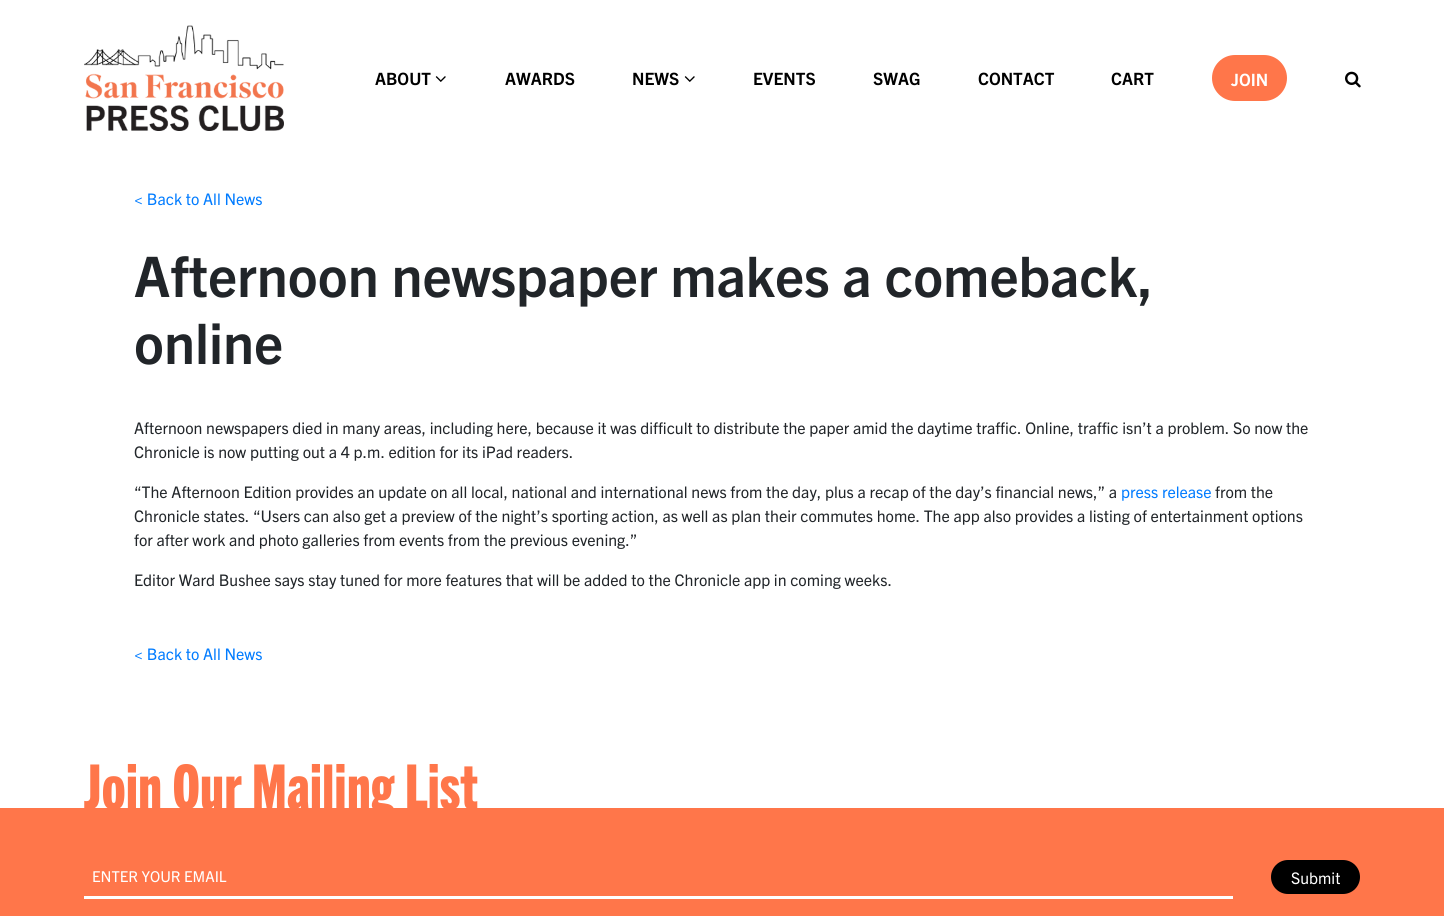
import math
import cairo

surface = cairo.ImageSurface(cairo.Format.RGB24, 1444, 916)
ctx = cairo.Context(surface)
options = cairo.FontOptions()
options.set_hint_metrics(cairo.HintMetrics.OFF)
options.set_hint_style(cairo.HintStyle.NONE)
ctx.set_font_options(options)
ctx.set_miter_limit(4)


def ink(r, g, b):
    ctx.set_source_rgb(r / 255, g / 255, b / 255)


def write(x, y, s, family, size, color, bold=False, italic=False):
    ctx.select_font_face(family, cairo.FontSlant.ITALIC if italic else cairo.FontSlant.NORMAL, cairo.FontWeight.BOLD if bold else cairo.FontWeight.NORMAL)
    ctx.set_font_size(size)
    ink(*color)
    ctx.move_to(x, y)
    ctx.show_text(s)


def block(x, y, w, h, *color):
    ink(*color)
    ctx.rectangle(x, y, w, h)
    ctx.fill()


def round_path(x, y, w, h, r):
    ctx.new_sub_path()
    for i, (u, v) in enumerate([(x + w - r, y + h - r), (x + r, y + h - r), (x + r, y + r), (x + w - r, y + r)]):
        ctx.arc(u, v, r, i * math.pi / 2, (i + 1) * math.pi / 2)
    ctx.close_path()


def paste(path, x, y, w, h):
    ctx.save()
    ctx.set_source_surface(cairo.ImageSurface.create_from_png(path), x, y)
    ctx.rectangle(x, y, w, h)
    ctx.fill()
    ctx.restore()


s1 = dict(family="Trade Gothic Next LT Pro", size=17, color=(0, 0, 0), bold=True)
s2 = dict(family="Trade Gothic Next LT Pro", size=17, color=(255, 255, 255), bold=True)
s3 = dict(family="Trade Gothic Next LT Pro", size=16, color=(0, 123, 255))
s4 = dict(family="Trade Gothic Next LT Pro", size=56, color=(33, 37, 41), bold=True)
s5 = dict(family="Trade Gothic Next LT Pro", size=16, color=(33, 37, 41))
s6 = dict(family="Trade Gothic Next LT Pro ExtraBold", size=62, color=(255, 118, 74))
s7 = dict(family="Trade Gothic Next LT Pro", size=15, color=(255, 255, 255))
s8 = dict(family="Trade Gothic Next LT Pro", size=16, color=(255, 255, 255))

ink(255, 255, 255)
ctx.paint()
paste("pic1.png", 84, 25, 200, 106)
write(375, 85, "ABOUT", **s1)
paste("pic2.png", 435, 76, 11, 6)
write(505, 85, "AWARDS", **s1)
write(632, 85, "NEWS", **s1)
paste("pic2.png", 684, 76, 11, 6)
write(753, 85, "EVENTS", **s1)
write(873, 85, "SWAG", **s1)
write(978, 85, "CONTACT", **s1)
write(1111, 85, "CART", **s1)
ink(255, 118, 74)
round_path(1212, 55, 75, 46, 23)
ctx.fill()
write(1231, 86, "JOIN", **s2)
paste("pic3.png", 1345, 71, 16, 17)
write(134, 205, "< Back to All News", **s3)
write(134, 297, "Afternoon newspaper makes a comeback,", **s4)
write(134, 364, "online", **s4)
write(134, 434, "Afternoon newspapers died in many areas, including here, because it was difficult to distribute the paper amid the daytime traffic. Online, traffic isn’t a problem. So now the", **s5)
write(134, 458, "Chronicle is now putting out a 4 p.m. edition for its iPad readers.", **s5)
write(134, 498, "“The Afternoon Edition provides an update on all local, national and international news from the day, plus a recap of the day’s financial news,” a", **s5)
write(1121, 498, "press release", **s3)
write(1215, 498, "from the", **s5)
write(134, 522, "Chronicle states. “Users can also get a preview of the night’s sporting action, as well as plan their commutes home. The app also provides a listing of entertainment options", **s5)
write(134, 546, "for after work and photo galleries from events from the previous evening.”", **s5)
write(134, 586, "Editor Ward Bushee says stay tuned for more features that will be added to the Chronicle app in coming weeks.", **s5)
write(134, 660, "< Back to All News", **s3)
block(0, 808, 1444, 108, 255, 118, 74)
write(84, 809, "Join Our Mailing List", **s6)
block(84, 896, 1149, 3, 255, 255, 255)
write(92, 882, "ENTER YOUR EMAIL", **s7)
ink(0, 0, 0)
round_path(1271, 860, 89, 34, 17)
ctx.fill()
write(1291, 884, "Submit", **s8)
surface.write_to_png("screenshot.png")
